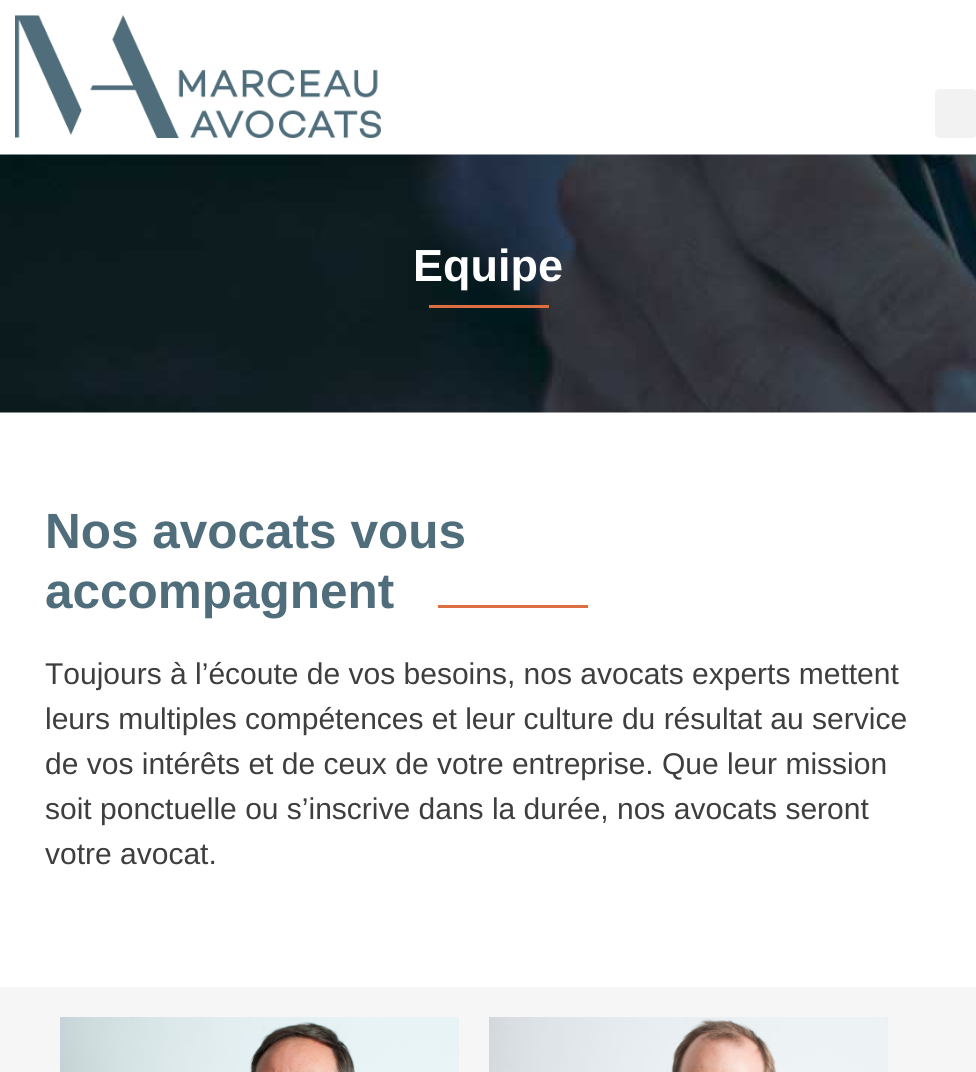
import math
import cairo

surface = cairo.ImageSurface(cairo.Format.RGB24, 976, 1072)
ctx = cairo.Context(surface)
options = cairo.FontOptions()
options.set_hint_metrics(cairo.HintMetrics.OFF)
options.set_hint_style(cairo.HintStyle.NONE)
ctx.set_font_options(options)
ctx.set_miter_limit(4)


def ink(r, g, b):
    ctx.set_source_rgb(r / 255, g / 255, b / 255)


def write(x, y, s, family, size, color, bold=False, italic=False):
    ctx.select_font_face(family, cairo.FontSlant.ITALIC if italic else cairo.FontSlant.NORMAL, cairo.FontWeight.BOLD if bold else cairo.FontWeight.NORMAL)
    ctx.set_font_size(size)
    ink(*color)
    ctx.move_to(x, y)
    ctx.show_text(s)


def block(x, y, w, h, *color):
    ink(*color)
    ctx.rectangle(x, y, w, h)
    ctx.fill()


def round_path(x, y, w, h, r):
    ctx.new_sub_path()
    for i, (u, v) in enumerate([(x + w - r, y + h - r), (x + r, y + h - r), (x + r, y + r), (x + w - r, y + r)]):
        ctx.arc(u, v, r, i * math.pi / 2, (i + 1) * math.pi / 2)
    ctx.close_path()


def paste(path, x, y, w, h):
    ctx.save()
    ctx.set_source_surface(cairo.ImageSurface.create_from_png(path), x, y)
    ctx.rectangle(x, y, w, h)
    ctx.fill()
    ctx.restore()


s1 = dict(family="Liberation Sans", size=45, color=(255, 255, 255), bold=True)
s2 = dict(family="Liberation Sans", size=49.5, color=(79, 109, 122), bold=True)
s3 = dict(family="Liberation Sans", size=30, color=(62, 62, 62))

ink(255, 255, 255)
ctx.paint()
paste("pic1.png", 15, 15, 366, 123)
ink(242, 242, 242)
round_path(935, 89, 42, 49, 5)
ctx.fill()
paste("pic2.png", 0, 154, 976, 259)
write(413, 281, "Equipe", **s1)
block(429, 305, 120, 3, 221, 110, 66)
write(45, 548, "Nos avocats vous", **s2)
write(45, 608, "accompagnent", **s2)
block(438, 605, 150, 3, 221, 110, 66)
write(45, 684, "Toujours à l’écoute de vos besoins, nos avocats experts mettent", **s3)
write(45, 729, "leurs multiples compétences et leur culture du résultat au service", **s3)
write(45, 774, "de vos intérêts et de ceux de votre entreprise. Que leur mission", **s3)
write(45, 819, "soit ponctuelle ou s’inscrive dans la durée, nos avocats seront", **s3)
write(45, 864, "votre avocat.", **s3)
block(0, 987, 976, 85, 246, 246, 246)
paste("pic3.png", 60, 1017, 399, 55)
paste("pic4.png", 489, 1017, 399, 55)
surface.write_to_png("screenshot.png")
